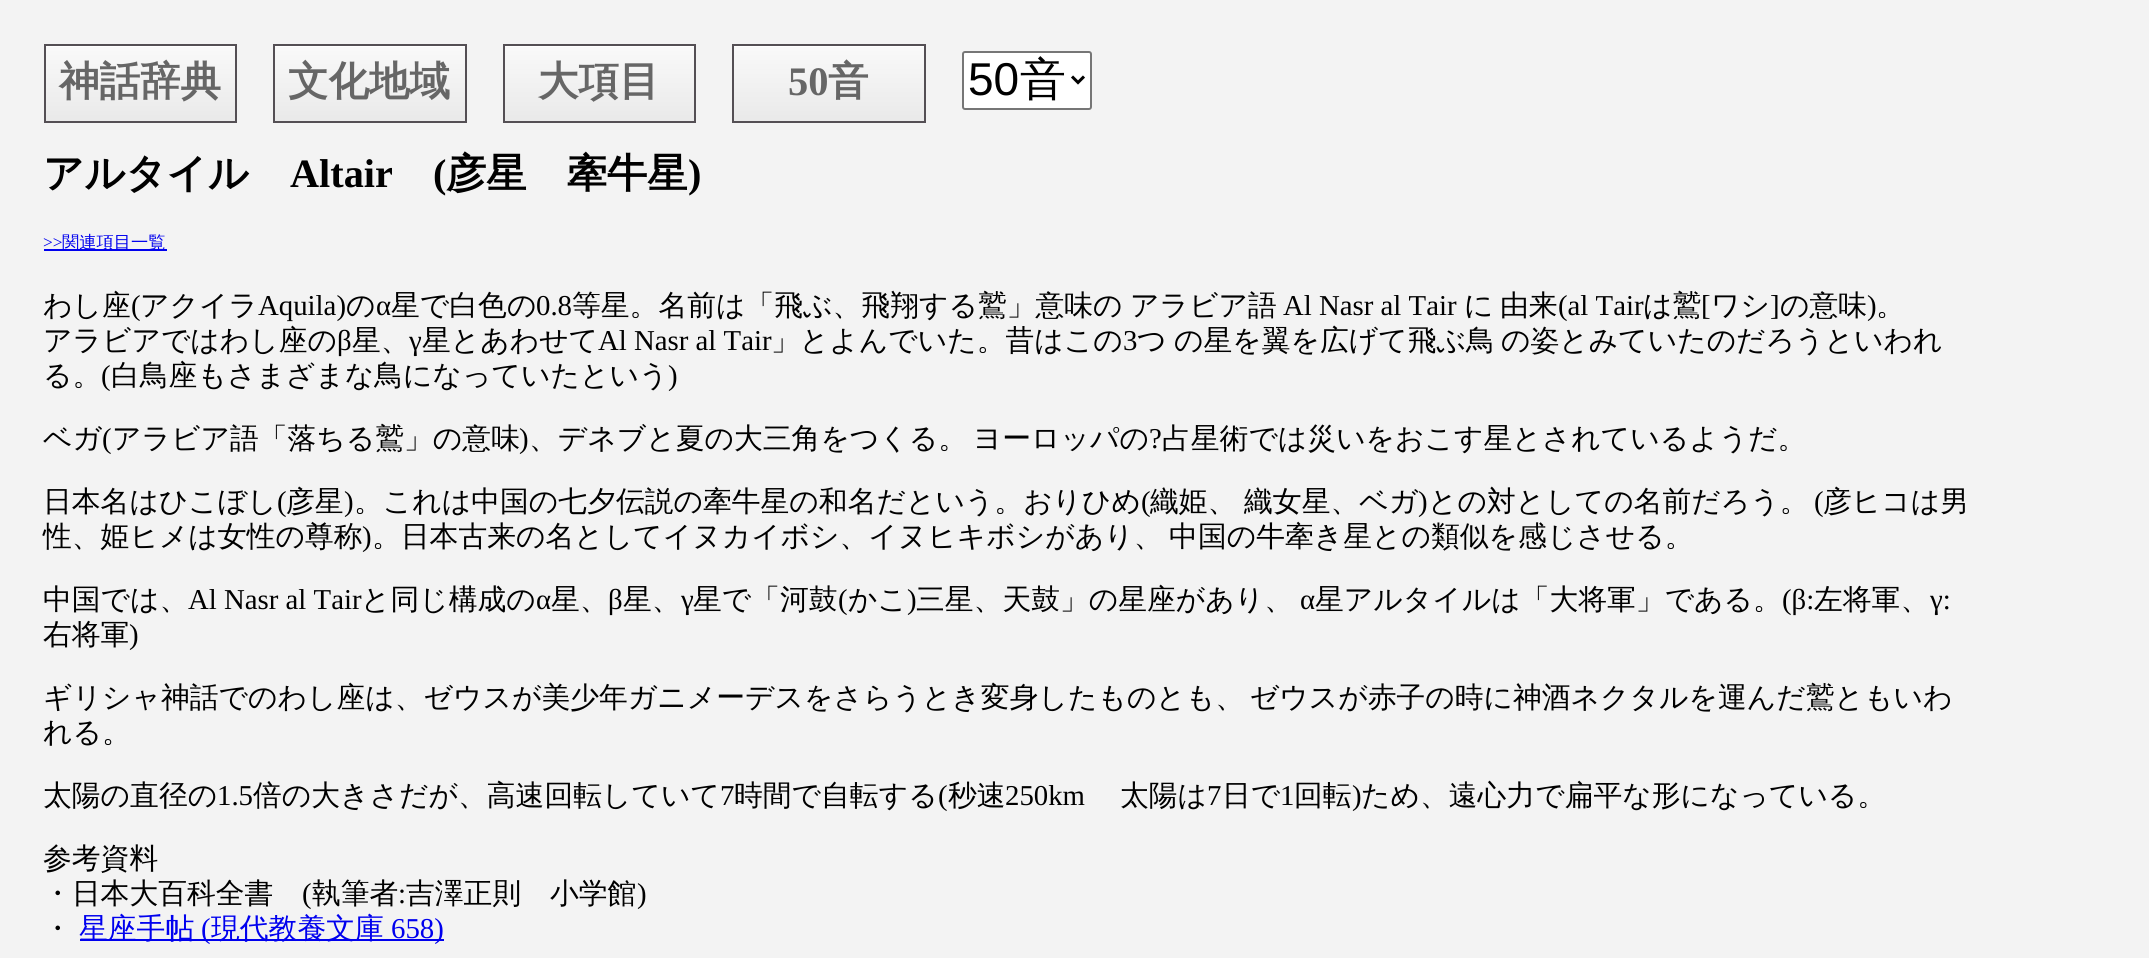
import math
import cairo

surface = cairo.ImageSurface(cairo.Format.RGB24, 2149, 958)
ctx = cairo.Context(surface)
options = cairo.FontOptions()
options.set_hint_metrics(cairo.HintMetrics.OFF)
options.set_hint_style(cairo.HintStyle.NONE)
ctx.set_font_options(options)
ctx.set_miter_limit(4)


def ink(r, g, b):
    ctx.set_source_rgb(r / 255, g / 255, b / 255)


def write(x, y, s, family, size, color, bold=False, italic=False):
    ctx.select_font_face(family, cairo.FontSlant.ITALIC if italic else cairo.FontSlant.NORMAL, cairo.FontWeight.BOLD if bold else cairo.FontWeight.NORMAL)
    ctx.set_font_size(size)
    ink(*color)
    ctx.move_to(x, y)
    ctx.show_text(s)


def write_spaced(x, y, s, letter, word):
    ctx.move_to(x, y)
    for ch in s:
        ctx.show_text(ch)
        ctx.rel_move_to(letter + word * (ch == ' '), 0)


def block(x, y, w, h, *color):
    ink(*color)
    ctx.rectangle(x, y, w, h)
    ctx.fill()


def round_path(x, y, w, h, r):
    ctx.new_sub_path()
    for i, (u, v) in enumerate([(x + w - r, y + h - r), (x + r, y + h - r), (x + r, y + r), (x + w - r, y + r)]):
        ctx.arc(u, v, r, i * math.pi / 2, (i + 1) * math.pi / 2)
    ctx.close_path()


s1 = dict(family="WenQuanYi Zen Hei", size=40.5, color=(102, 102, 102), bold=True)
s2 = dict(family="Liberation Serif", size=40.5, color=(102, 102, 102), bold=True)
s3 = dict(family="Liberation Sans", size=46, color=(0, 0, 0))
s4 = dict(family="WenQuanYi Zen Hei Medium", size=46, color=(0, 0, 0))
s5 = dict(family="WenQuanYi Zen Hei", size=40.25, color=(0, 0, 0), bold=True)
s6 = dict(family="Liberation Serif", size=40.25, color=(0, 0, 0), bold=True)
s7 = dict(family="Liberation Serif", size=17.25, color=(0, 0, 238))
s8 = dict(family="WenQuanYi Zen Hei Medium", size=17.25, color=(0, 0, 238))
s9 = dict(family="WenQuanYi Zen Hei Medium", size=28.8, color=(0, 0, 0))
s10 = dict(family="Liberation Serif", size=28.8, color=(0, 0, 0))
s11 = dict(family="WenQuanYi Zen Hei Medium", size=28.8, color=(0, 0, 238))
s12 = dict(family="Liberation Serif", size=28.8, color=(0, 0, 238))

ink(243, 243, 243)
ctx.paint()
gradient = cairo.LinearGradient(45, 45, 45, 122)
gradient.add_color_stop_rgba(0.05, 0.976, 0.976, 0.976, 1)
gradient.add_color_stop_rgba(1, 0.914, 0.914, 0.914, 1)
ctx.set_source(gradient)
ctx.rectangle(46, 47, 189, 74)
ctx.fill()
block(45, 46, 191, 1, 255, 255, 255)
ctx.rectangle(45, 45, 191, 77)
ink(84, 79, 84)
ctx.stroke()
write(59, 95, "神話辞典", **s1)
gradient = cairo.LinearGradient(275, 45, 275, 122)
gradient.add_color_stop_rgba(0.05, 0.976, 0.976, 0.976, 1)
gradient.add_color_stop_rgba(1, 0.914, 0.914, 0.914, 1)
ctx.set_source(gradient)
ctx.rectangle(275, 47, 190, 74)
ctx.fill()
block(275, 46, 190, 1, 255, 255, 255)
ctx.rectangle(274, 45, 192, 77)
ink(84, 79, 84)
ctx.stroke()
write(288, 95, "文化地域", **s1)
gradient = cairo.LinearGradient(504, 45, 504, 122)
gradient.add_color_stop_rgba(0.05, 0.976, 0.976, 0.976, 1)
gradient.add_color_stop_rgba(1, 0.914, 0.914, 0.914, 1)
ctx.set_source(gradient)
ctx.rectangle(505, 47, 189, 74)
ctx.fill()
block(504, 46, 191, 1, 255, 255, 255)
ctx.rectangle(504, 45, 191, 77)
ink(84, 79, 84)
ctx.stroke()
write(538, 95, "大項目", **s1)
gradient = cairo.LinearGradient(734, 45, 734, 122)
gradient.add_color_stop_rgba(0.05, 0.976, 0.976, 0.976, 1)
gradient.add_color_stop_rgba(1, 0.914, 0.914, 0.914, 1)
ctx.set_source(gradient)
ctx.rectangle(734, 47, 190, 74)
ctx.fill()
block(734, 46, 190, 1, 255, 255, 255)
ctx.rectangle(733, 45, 192, 77)
ink(84, 79, 84)
ctx.stroke()
write(788, 95, "50", **s2)
write(828, 95, "音", **s1)
ink(255, 255, 255)
round_path(963, 52, 128, 57, 2)
ctx.fill_preserve()
ink(118, 118, 118)
ctx.stroke()
ctx.new_path()
ctx.move_to(1072, 76.5)
ctx.line_to(1078, 82.5)
ctx.line_to(1084, 76.5)
ink(0, 0, 0)
ctx.set_line_width(3)
ctx.stroke()
write(968, 95, "50", **s3)
write(1020, 95, "音", **s4)
write(43, 187, "アルタイル", **s5)
write(290, 187, "Altair", **s6)
write(433, 187, "(", **s6)
write(446, 187, "彦星　牽牛星", **s5)
write(688, 187, ")", **s6)
write(43, 248, ">>", **s7)
block(44, 249, 123, 2, 0, 0, 238)
write(62, 248, "関連項目一覧", **s8)
write(43, 315, "わし座", **s9)
write(131, 315, "(", **s10)
write(140, 315, "アクイラ", **s9)
write(258, 315, "Aquila)", **s10)
write(346, 315, "の", **s9)
write(376, 315, "α", **s10)
write(391, 315, "星で白色の", **s9)
write(536, 315, "0.8", **s10)
write(572, 315, "等星。名前は「飛ぶ、飛翔する鷲」意味の", **s9)
write(1130, 315, "アラビア語", **s9)
write(1283, 315, "Al Nasr al Tair", **s10)
write(1464, 315, "に", **s9)
write(1500, 315, "由来", **s9)
write(1558, 315, "(al Tair", **s10)
write(1643, 315, "は鷲", **s9)
write(1701, 315, "[", **s10)
write(1711, 315, "ワシ", **s9)
write(1770, 315, "]", **s10)
write(1780, 315, "の意味", **s9)
write(1867, 315, ")", **s10)
write(1876, 315, "。", **s9)
write(43, 350, "アラビアではわし座の", **s9)
write(337, 350, "β", **s10)
write(352, 350, "星、", **s9)
write(409, 350, "γ", **s10)
write(422, 350, "星とあわせて", **s9)
write(598, 350, "Al Nasr al Tair", **s10)
write(771, 350, "」とよんでいた。昔はこの", **s9)
write(1123, 350, "3", **s10)
write(1137, 350, "つ", **s9)
write(1174, 350, "の星を翼を広げて飛ぶ鳥", **s9)
write(1501, 350, "の姿とみていたのだろうといわれ", **s9)
write(43, 385, "る。", **s9)
write(101, 385, "(", **s10)
write(111, 385, "白鳥座もさまざまな鳥になっていたという", **s9)
write(668, 385, ")", **s10)
write(43, 448, "ベガ", **s9)
write(102, 448, "(", **s10)
write(112, 448, "アラビア語「落ちる鷲」の意味", **s9)
write(519, 448, ")", **s10)
ctx.select_font_face("WenQuanYi Zen Hei Medium")
write_spaced(529, 448, "、デネブと夏の大三角をつくる。 ヨーロッパの", 0, -3)
write(1149, 448, "?", **s10)
write(1162, 448, "占星術では災いをおこす星とされているようだ。", **s9)
write(43, 511, "日本名はひこぼし", **s9)
write(277, 511, "(", **s10)
write(286, 511, "彦星", **s9)
write(344, 511, ")", **s10)
write(354, 511, "。これは中国の七夕伝説の牽牛星の和名だという。おりひめ", **s9)
write(1141, 511, "(", **s10)
ctx.select_font_face("WenQuanYi Zen Hei Medium")
write_spaced(1150, 511, "織姫、 織女星、ベガ", 0, -1)
write(1418, 511, ")", **s10)
write(1428, 511, "との対としての名前だろう。", **s9)
write(1814, 511, "(", **s10)
write(1823, 511, "彦ヒコは男", **s9)
write(43, 546, "性、姫ヒメは女性の尊称", **s9)
write(362, 546, ")", **s10)
ctx.select_font_face("WenQuanYi Zen Hei Medium")
write_spaced(372, 546, "。日本古来の名としてイヌカイボシ、イヌヒキボシがあり、 中国の牛牽き星との類似を感じさせる。", 0, -2)
write(43, 609, "中国では、", **s9)
write(188, 609, "Al Nasr al Tair", **s10)
write(361, 609, "と同じ構成の", **s9)
write(536, 609, "α", **s10)
write(551, 609, "星、", **s9)
write(608, 609, "β", **s10)
write(623, 609, "星、", **s9)
write(681, 609, "γ", **s10)
write(693, 609, "星で「河鼓", **s9)
write(838, 609, "(", **s10)
write(848, 609, "かこ", **s9)
write(907, 609, ")", **s10)
write(916, 609, "三星、天鼓」の星座があり、", **s9)
write(1300, 609, "α", **s10)
write(1315, 609, "星アルタイルは「大将軍」である。", **s9)
write(1782, 609, "(β:", **s10)
write(1814, 609, "左将軍、", **s9)
write(1930, 609, "γ:", **s10)
write(43, 644, "右将軍", **s9)
write(129, 644, ")", **s10)
ctx.select_font_face("WenQuanYi Zen Hei Medium")
write_spaced(43, 707, "ギリシャ神話でのわし座は、ゼウスが美少年ガニメーデスをさらうとき変身したものとも、 ゼウスが赤子の時に神酒ネクタルを運んだ鷲ともいわ", 0, -3)
write(43, 742, "れる。", **s9)
write(43, 805, "太陽の直径の", **s9)
write(217, 805, "1.5", **s10)
write(253, 805, "倍の大きさだが、高速回転していて", **s9)
write(720, 805, "7", **s10)
write(734, 805, "時間で自転する", **s9)
write(938, 805, "(", **s10)
write(948, 805, "秒速", **s9)
write(1005, 805, "250km", **s10)
write(1120, 805, "太陽は", **s9)
write(1207, 805, "7", **s10)
write(1222, 805, "日で", **s9)
write(1280, 805, "1", **s10)
write(1294, 805, "回転", **s9)
write(1352, 805, ")", **s10)
write(1361, 805, "ため、遠心力で扁平な形になっている。", **s9)
write(43, 868, "参考資料", **s9)
write(43, 903, "・日本大百科全書", **s9)
write(302, 903, "(", **s10)
write(312, 903, "執筆者", **s9)
write(398, 903, ":", **s10)
write(406, 903, "吉澤正則　小学館", **s9)
write(637, 903, ")", **s10)
write(43, 938, "・", **s9)
block(80, 939, 364, 2, 0, 0, 238)
write(79, 938, "星座手帖", **s11)
write(201, 938, "(", **s12)
write(211, 938, "現代教養文庫", **s11)
write(391, 938, "658)", **s12)
surface.write_to_png("screenshot.png")
